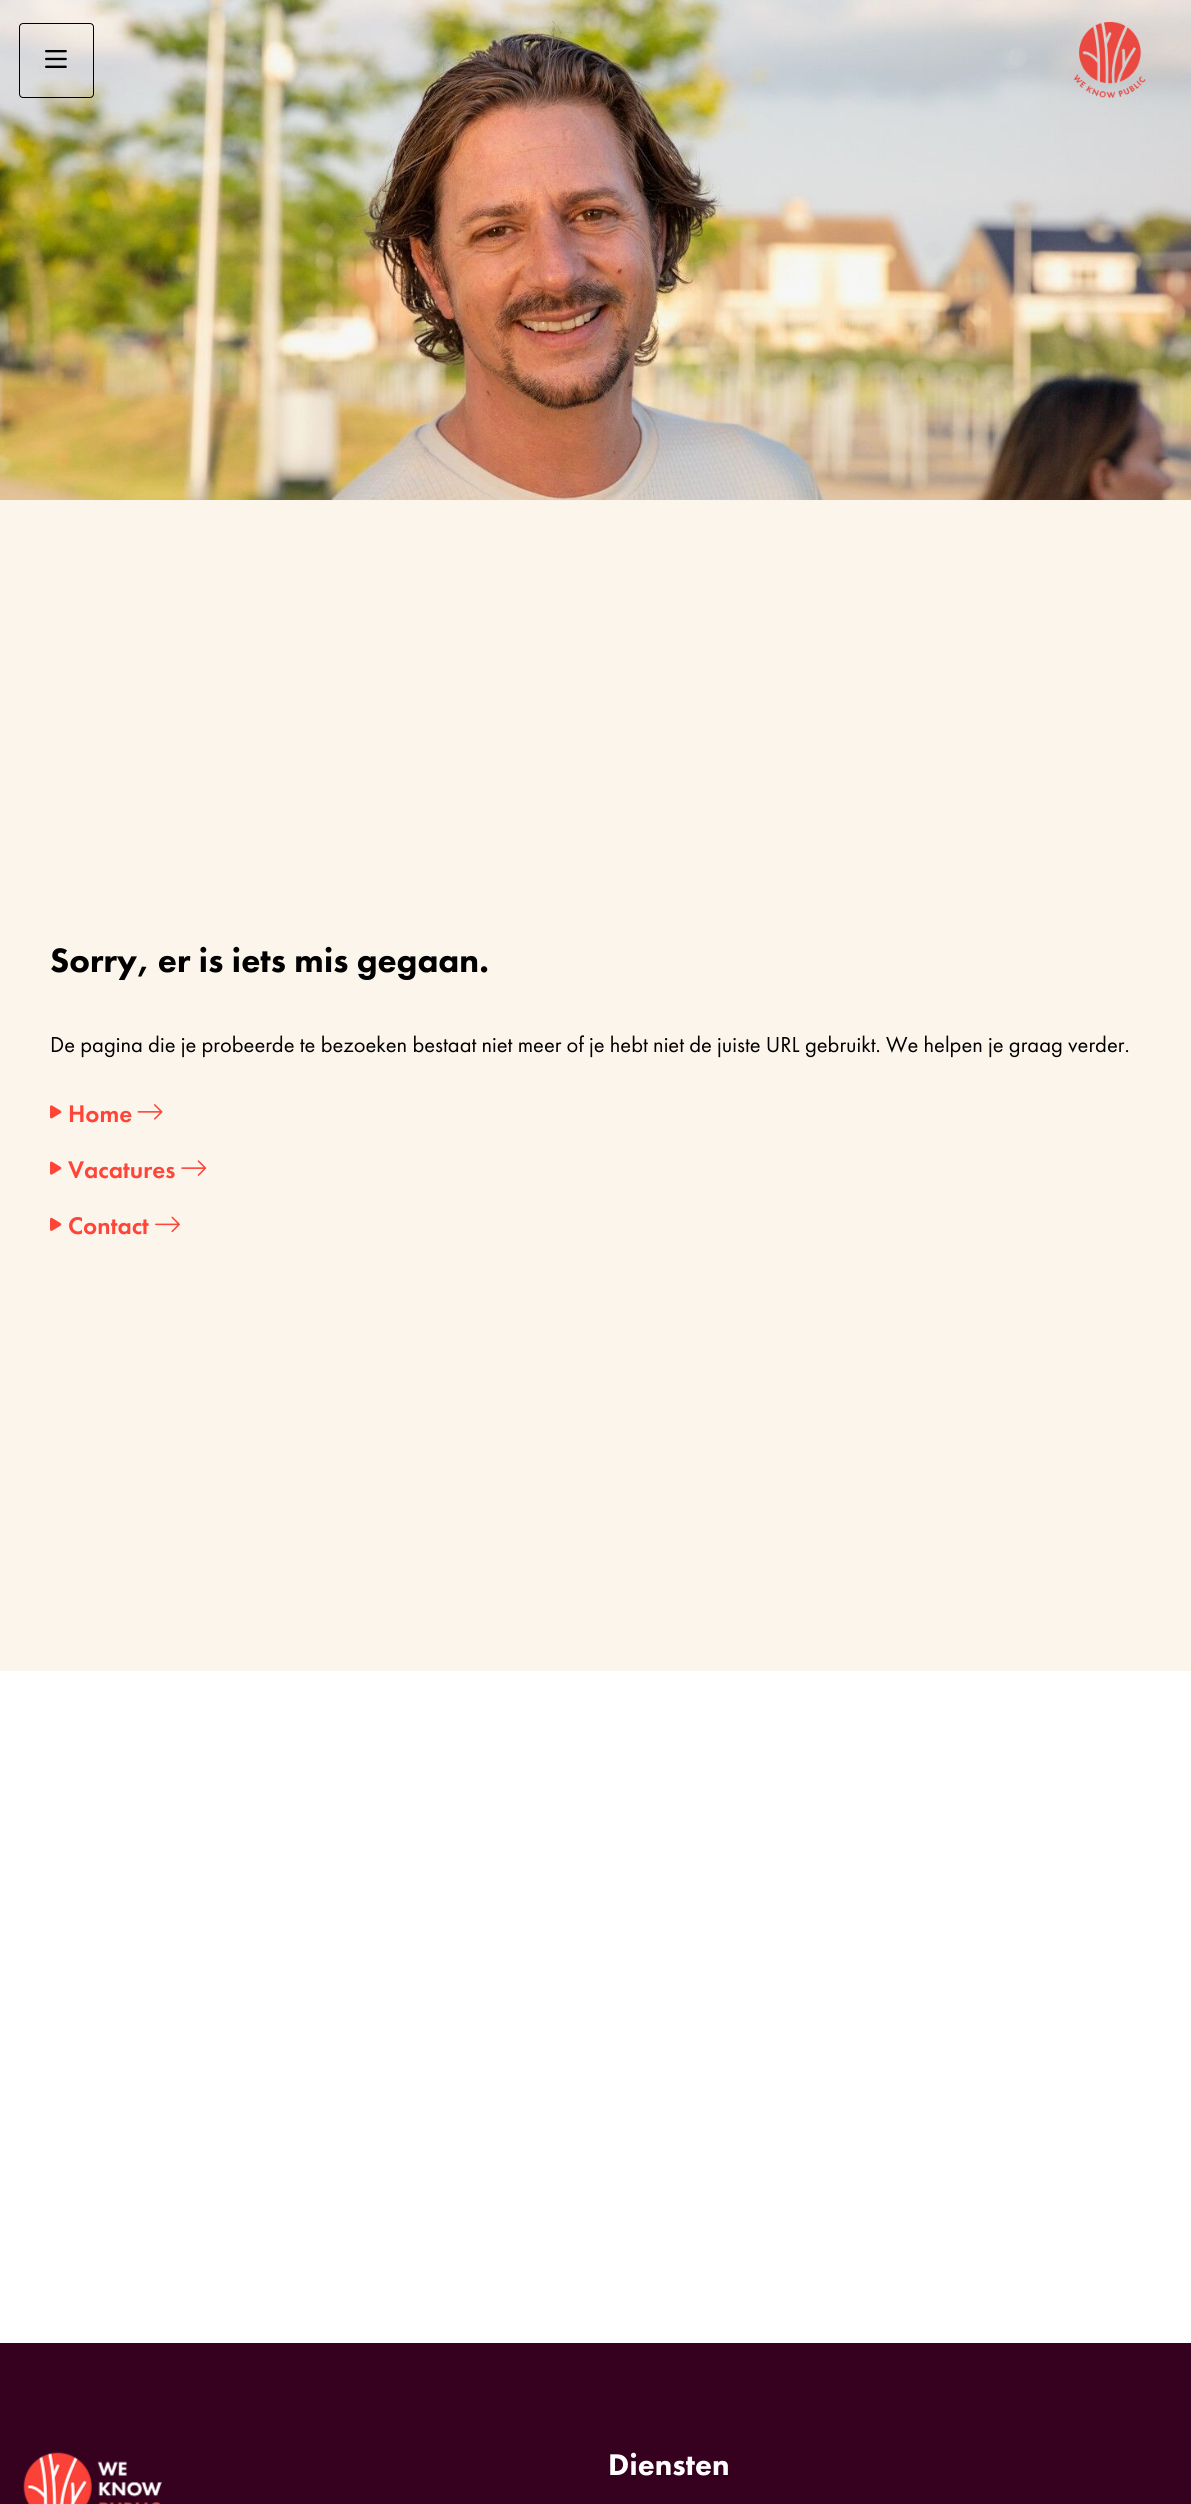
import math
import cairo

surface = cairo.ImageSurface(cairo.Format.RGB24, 1191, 2504)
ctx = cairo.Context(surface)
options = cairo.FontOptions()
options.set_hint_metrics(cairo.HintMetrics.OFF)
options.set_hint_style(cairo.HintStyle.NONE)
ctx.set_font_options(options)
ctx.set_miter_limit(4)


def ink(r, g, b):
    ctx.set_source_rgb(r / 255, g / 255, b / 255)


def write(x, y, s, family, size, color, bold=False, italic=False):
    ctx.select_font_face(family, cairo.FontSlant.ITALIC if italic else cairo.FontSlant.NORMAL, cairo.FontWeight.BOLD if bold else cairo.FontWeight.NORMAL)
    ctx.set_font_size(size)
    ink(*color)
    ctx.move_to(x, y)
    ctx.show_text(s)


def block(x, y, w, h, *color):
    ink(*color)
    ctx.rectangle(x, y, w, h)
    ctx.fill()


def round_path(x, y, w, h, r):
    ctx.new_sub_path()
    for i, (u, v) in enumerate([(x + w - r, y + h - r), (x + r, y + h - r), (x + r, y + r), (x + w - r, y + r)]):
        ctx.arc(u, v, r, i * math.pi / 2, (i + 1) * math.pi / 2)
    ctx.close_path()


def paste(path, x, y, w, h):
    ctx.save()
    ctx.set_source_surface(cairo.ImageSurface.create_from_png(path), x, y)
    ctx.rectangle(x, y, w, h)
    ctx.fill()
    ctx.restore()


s1 = dict(family="Futura PT Black", size=35, color=(0, 0, 0))
s2 = dict(family="Futura PT", size=22.5, color=(0, 0, 0))
s3 = dict(family="Futura PT Medium", size=25, color=(255, 68, 56))
s4 = dict(family="Futura PT Black", size=31, color=(255, 255, 255))

ink(255, 255, 255)
ctx.paint()
paste("pic3.png", 0, 0, 1191, 500)
round_path(19.5, 23.5, 74, 74, 3.5)
ink(0, 0, 0)
ctx.set_line_width(1)
ctx.stroke()
paste("pic1.png", 45, 50, 22, 18)
paste("pic2.png", 1073, 21, 73, 77)
block(0, 500, 1191, 1171, 252, 245, 236)
write(50, 972, "Sorry, er is iets mis gegaan.", **s1)
write(50, 1052, "De pagina die je probeerde te bezoeken bestaat niet meer of je hebt niet de juiste URL gebruikt. We helpen je graag verder.", **s2)
paste("pic4.png", 50, 1105, 12, 14)
write(68, 1122, "Home", **s3)
paste("pic5.png", 137, 1104, 26, 16)
paste("pic6.png", 50, 1161, 12, 14)
write(68, 1178, "Vacatures", **s3)
paste("pic7.png", 181, 1160, 26, 16)
paste("pic8.png", 50, 1217, 12, 14)
write(68, 1234, "Contact", **s3)
paste("pic9.png", 155, 1216, 25, 17)
block(0, 2343, 1191, 161, 54, 0, 31)
paste("pic10.png", 23, 2452, 139, 52)
write(608, 2475, "Diensten", **s4)
surface.write_to_png("screenshot.png")
